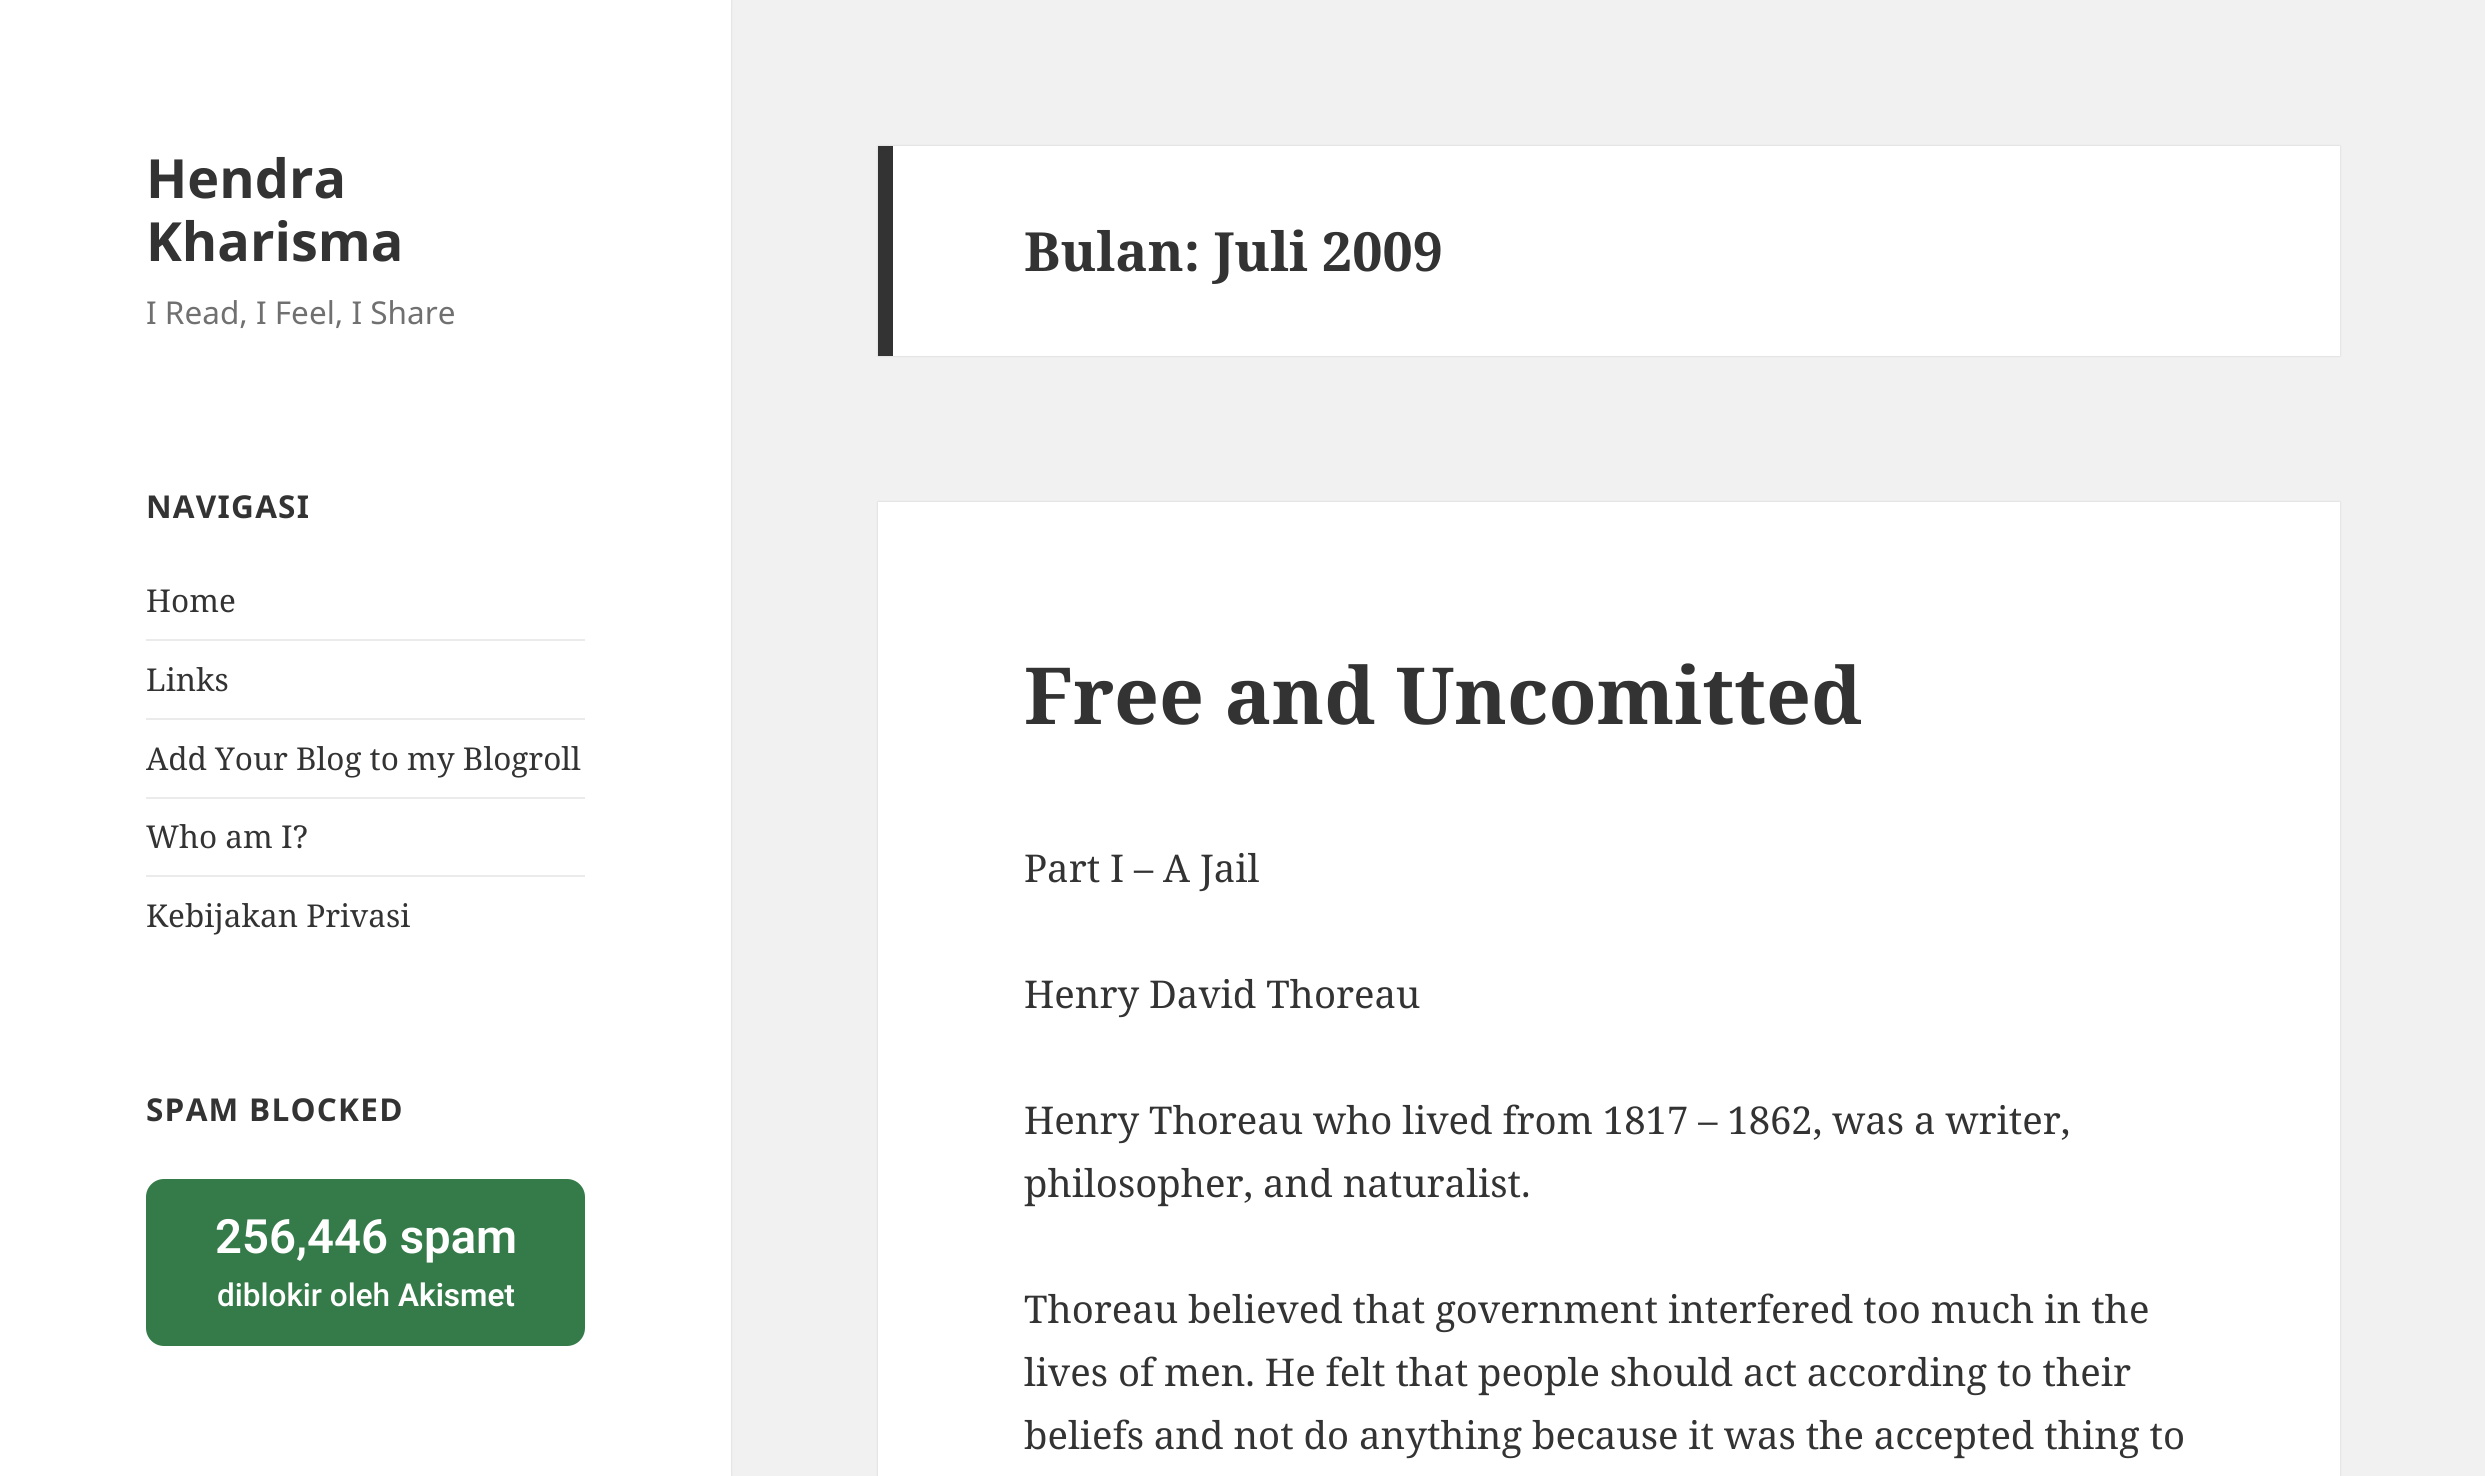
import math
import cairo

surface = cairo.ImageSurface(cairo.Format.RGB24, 2485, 1476)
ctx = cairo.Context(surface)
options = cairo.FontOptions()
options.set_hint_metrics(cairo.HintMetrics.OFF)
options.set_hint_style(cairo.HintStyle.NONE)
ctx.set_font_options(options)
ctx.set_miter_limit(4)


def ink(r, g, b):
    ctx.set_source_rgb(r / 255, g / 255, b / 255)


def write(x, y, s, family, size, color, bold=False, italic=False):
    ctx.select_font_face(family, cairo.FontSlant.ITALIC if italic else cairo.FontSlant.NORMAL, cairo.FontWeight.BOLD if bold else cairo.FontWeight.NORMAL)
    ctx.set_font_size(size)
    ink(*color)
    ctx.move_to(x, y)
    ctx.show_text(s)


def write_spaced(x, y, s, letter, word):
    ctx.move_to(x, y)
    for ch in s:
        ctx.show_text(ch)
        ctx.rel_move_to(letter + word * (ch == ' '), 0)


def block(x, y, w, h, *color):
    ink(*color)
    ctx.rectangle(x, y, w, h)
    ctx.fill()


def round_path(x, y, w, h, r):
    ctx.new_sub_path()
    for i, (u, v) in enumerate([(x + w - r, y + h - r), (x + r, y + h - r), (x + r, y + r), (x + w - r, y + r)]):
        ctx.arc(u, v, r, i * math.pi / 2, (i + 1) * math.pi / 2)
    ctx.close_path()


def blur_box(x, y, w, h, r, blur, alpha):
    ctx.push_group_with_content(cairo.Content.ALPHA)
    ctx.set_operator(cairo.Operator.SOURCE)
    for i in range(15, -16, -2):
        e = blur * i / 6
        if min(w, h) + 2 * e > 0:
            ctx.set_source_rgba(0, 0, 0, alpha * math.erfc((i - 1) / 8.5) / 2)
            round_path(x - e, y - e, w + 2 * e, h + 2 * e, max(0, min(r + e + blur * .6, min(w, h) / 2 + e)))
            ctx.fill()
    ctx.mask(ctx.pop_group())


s1 = dict(family="Noto Sans", size=54, color=(51, 51, 51), bold=True)
s2 = dict(family="Noto Sans", size=31.5, color=(112, 112, 112))
s3 = dict(family="Noto Serif", size=31.5, color=(51, 51, 51))
s4 = dict(family="Roboto SemiBold", size=47.25, color=(255, 255, 255))
s5 = dict(family="Roboto Medium", size=31.5, color=(255, 255, 255))
s6 = dict(family="Roboto SemiBold", size=31.5, color=(255, 255, 255))
s7 = dict(family="Noto Serif", size=54, color=(51, 51, 51), bold=True)
s8 = dict(family="Noto Serif", size=78.75, color=(51, 51, 51), bold=True)
s9 = dict(family="Noto Serif", size=38.25, color=(51, 51, 51))

ink(241, 241, 241)
ctx.paint()
ink(0, 0, 0)
blur_box(0, 0, 731, 1476, 0, 1, 0.15)
block(0, 0, 731, 1476, 255, 255, 255)
write(146, 198, "Hendra", **s1)
write(146, 261, "Kharisma", **s1)
write(146, 324, "I Read, I Feel, I Share", **s2)
ctx.select_font_face("Noto Sans", cairo.FontSlant.NORMAL, cairo.FontWeight.BOLD)
ink(51, 51, 51)
write_spaced(146, 518, "NAVIGASI", 1.25, 0)
write(146, 612, "Home", **s3)
block(146, 639, 439, 2, 235, 235, 235)
write(146, 691, "Links", **s3)
block(146, 718, 439, 2, 235, 235, 235)
write(146, 770, "Add Your Blog to my Blogroll", **s3)
block(146, 797, 439, 2, 235, 235, 235)
write(146, 848, "Who am I?", **s3)
block(146, 875, 439, 2, 235, 235, 235)
write(146, 927, "Kebijakan Privasi", **s3)
ctx.select_font_face("Noto Sans", cairo.FontSlant.NORMAL, cairo.FontWeight.BOLD)
write_spaced(146, 1121, "SPAM BLOCKED", 1.25, 0)
ink(53, 123, 73)
round_path(146, 1179, 439, 167, 18)
ctx.fill()
write(215, 1253, "256,446 spam", **s4)
write(217, 1306, "diblokir oleh", **s5)
write(398, 1306, "Akismet", **s6)
ink(0, 0, 0)
blur_box(878, 146, 1462, 210, 0, 1, 0.15)
block(893, 146, 1447, 210, 255, 255, 255)
block(878, 146, 15, 210, 51, 51, 51)
write(1024, 271, "Bulan: Juli 2009", **s7)
ink(0, 0, 0)
blur_box(878, 502, 1462, 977, 0, 1, 0.15)
block(878, 502, 1462, 974, 255, 255, 255)
write(1024, 724, "Free and Uncomitted", **s8)
write(1024, 882, "Part I – A Jail", **s9)
write(1024, 1008, "Henry David Thoreau", **s9)
write(1024, 1134, "Henry Thoreau who lived from 1817 – 1862, was a writer,", **s9)
write(1024, 1197, "philosopher, and naturalist.", **s9)
write(1024, 1323, "Thoreau believed that government interfered too much in the", **s9)
write(1024, 1386, "lives of men. He felt that people should act according to their", **s9)
write(1024, 1449, "beliefs and not do anything because it was the accepted thing to", **s9)
surface.write_to_png("screenshot.png")
